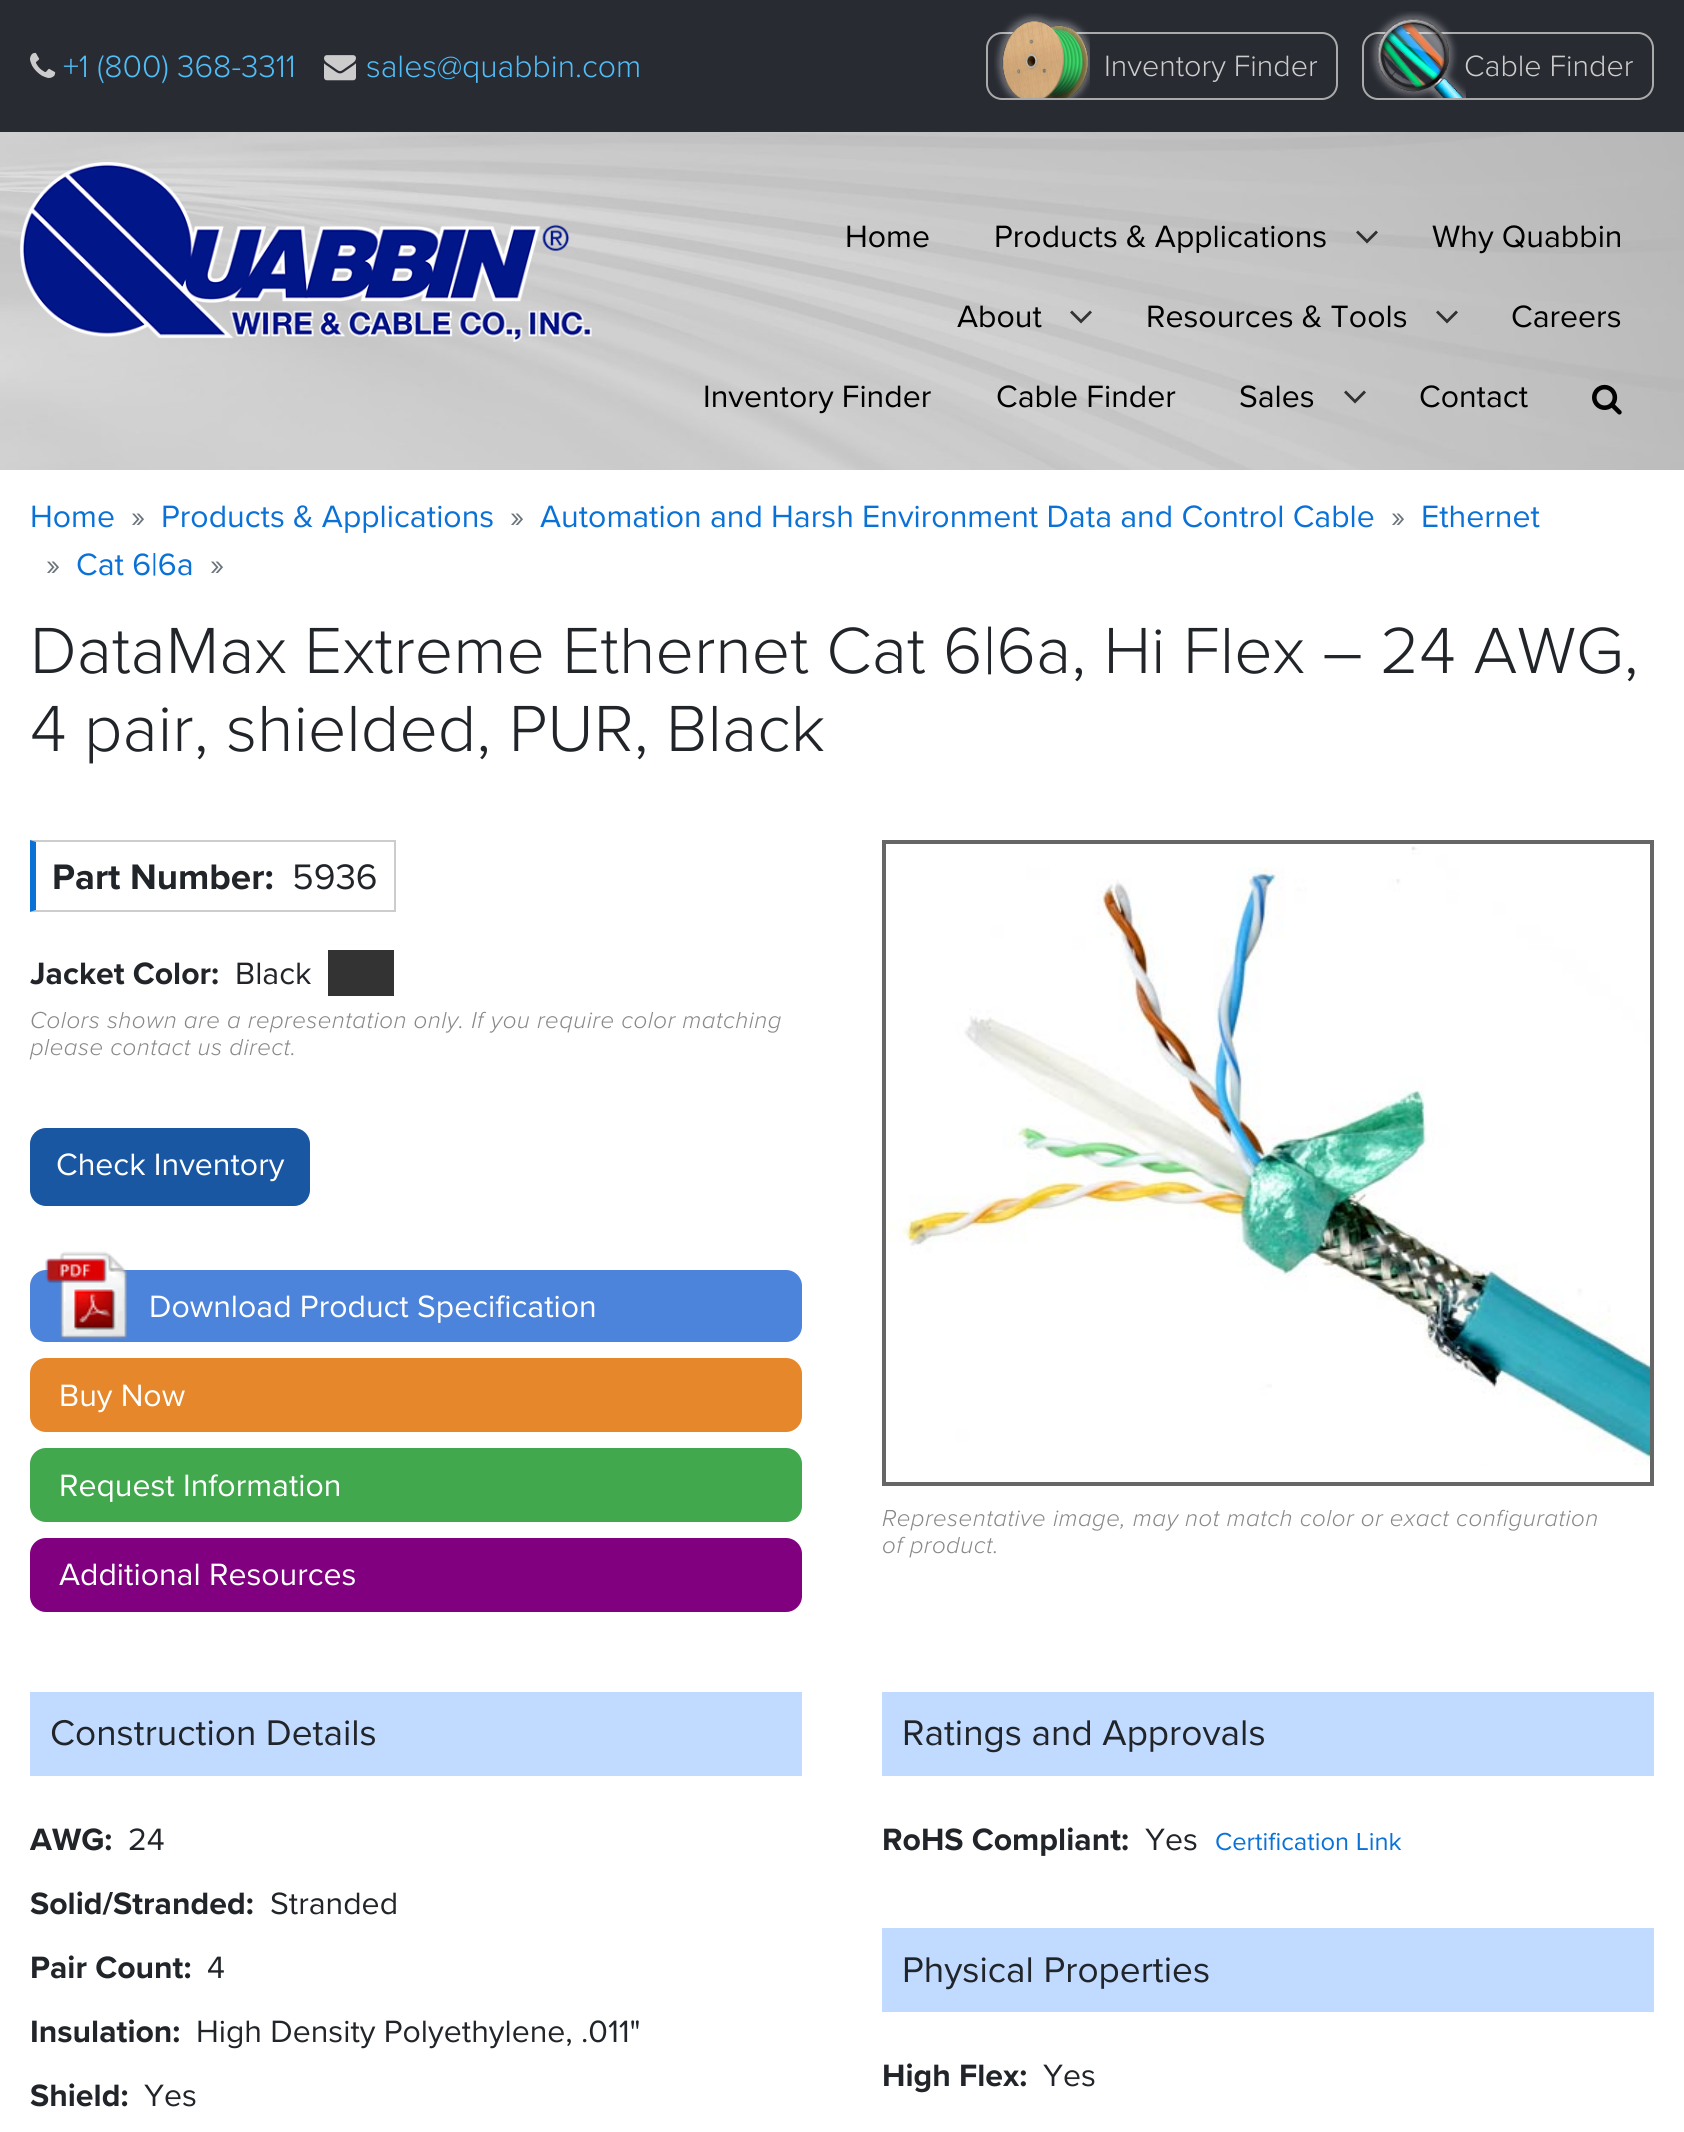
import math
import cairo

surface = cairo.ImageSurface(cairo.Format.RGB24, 1684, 2132)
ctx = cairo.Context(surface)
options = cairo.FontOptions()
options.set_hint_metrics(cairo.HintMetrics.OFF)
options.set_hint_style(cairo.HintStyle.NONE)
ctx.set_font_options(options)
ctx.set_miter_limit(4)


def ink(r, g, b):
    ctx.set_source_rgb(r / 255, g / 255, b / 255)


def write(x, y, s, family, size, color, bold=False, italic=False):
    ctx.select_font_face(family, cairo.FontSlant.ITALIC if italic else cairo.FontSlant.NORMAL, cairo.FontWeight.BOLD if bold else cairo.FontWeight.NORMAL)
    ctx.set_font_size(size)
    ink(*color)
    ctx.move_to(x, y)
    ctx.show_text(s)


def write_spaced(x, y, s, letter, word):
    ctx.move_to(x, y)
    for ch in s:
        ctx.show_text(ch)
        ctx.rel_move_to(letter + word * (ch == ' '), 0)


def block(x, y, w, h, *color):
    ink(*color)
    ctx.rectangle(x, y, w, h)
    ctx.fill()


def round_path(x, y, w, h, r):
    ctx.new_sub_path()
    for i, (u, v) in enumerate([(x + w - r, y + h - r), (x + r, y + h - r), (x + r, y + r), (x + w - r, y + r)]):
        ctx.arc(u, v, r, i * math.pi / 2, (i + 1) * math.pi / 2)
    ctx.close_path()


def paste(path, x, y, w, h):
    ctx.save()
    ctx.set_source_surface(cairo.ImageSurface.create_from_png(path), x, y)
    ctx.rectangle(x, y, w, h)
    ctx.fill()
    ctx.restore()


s1 = dict(family="Proxima Nova Light", size=32, color=(79, 190, 248))
s2 = dict(family="Proxima Nova Light", size=30.5, color=(204, 204, 204))
s3 = dict(family="Proxima Nova", size=32, color=(0, 0, 0))
s4 = dict(family="Proxima Nova", size=32, color=(10, 113, 215))
s5 = dict(family="Proxima Nova", size=32, color=(108, 117, 125))
s6 = dict(family="Proxima Nova Light", size=67.6, color=(33, 37, 41))
s7 = dict(family="Proxima Nova", size=36.75, color=(33, 37, 41), bold=True)
s8 = dict(family="Proxima Nova", size=36.75, color=(33, 37, 41))
s9 = dict(family="Proxima Nova", size=32, color=(33, 37, 41), bold=True)
s10 = dict(family="Proxima Nova", size=32, color=(33, 37, 41))
s11 = dict(family="Proxima Nova", size=32, color=(255, 255, 255))
s12 = dict(family="Proxima Nova", size=37, color=(33, 37, 41))
s13 = dict(family="Proxima Nova", size=25.5, color=(10, 113, 215))

ink(255, 255, 255)
ctx.paint()
block(0, 0, 1684, 132, 41, 43, 51)
paste("pic1.png", 30, 52, 26, 26)
write(63, 77, "+1 (800) 368-3311", **s1)
paste("pic2.png", 324, 55, 32, 26)
write(366, 77, "sales@quabbin.com", **s1)
round_path(987, 33, 350, 66, 15)
ink(170, 170, 170)
ctx.stroke()
paste("pic3.png", 994, 13, 96, 85)
write(1104, 76, "Inventory Finder", **s2)
round_path(1363, 33, 290, 66, 15)
ink(170, 170, 170)
ctx.stroke()
write(1464, 76, "Cable Finder", **s2)
paste("pic4.png", 1369, 11, 97, 87)
paste("pic5.png", 0, 132, 1684, 338)
paste("pic6.png", 20, 162, 572, 180)
write(845, 247, "Home", **s3)
write(994, 247, "Products & Applications", **s3)
ctx.set_source_rgba(0, 0, 0, 0.75)
ctx.new_path()
ctx.move_to(1376, 230.5)
ctx.line_to(1367, 239.5)
ctx.line_to(1358, 230.5)
ctx.line_to(1356, 232.5)
ctx.line_to(1367, 243.5)
ctx.line_to(1378, 232.5)
ctx.close_path()
ctx.fill()
write(1432, 247, "Why Quabbin", **s3)
write(957, 327, "About", **s3)
ink(51, 51, 51)
ctx.new_path()
ctx.move_to(1090, 310.5)
ctx.line_to(1081, 319.5)
ctx.line_to(1072, 310.5)
ctx.line_to(1070, 312.5)
ctx.line_to(1081, 323.5)
ctx.line_to(1092, 312.5)
ctx.close_path()
ctx.fill()
write(1146, 327, "Resources & Tools", **s3)
ink(49, 49, 49)
ctx.new_path()
ctx.move_to(1456, 310.5)
ctx.line_to(1447, 319.5)
ctx.line_to(1438, 310.5)
ctx.line_to(1436, 312.5)
ctx.line_to(1447, 323.5)
ctx.line_to(1458, 312.5)
ctx.close_path()
ctx.fill()
write(1511, 327, "Careers", **s3)
write(703, 407, "Inventory Finder", **s3)
write(996, 407, "Cable Finder", **s3)
write(1239, 407, "Sales", **s3)
ink(49, 49, 49)
ctx.new_path()
ctx.move_to(1364, 390.5)
ctx.line_to(1355, 399.5)
ctx.line_to(1346, 390.5)
ctx.line_to(1344, 392.5)
ctx.line_to(1355, 403.5)
ctx.line_to(1366, 392.5)
ctx.close_path()
ctx.fill()
write(1419, 407, "Contact", **s3)
paste("pic7.png", 1592, 384, 30, 31)
write(30, 527, "Home", **s4)
write(131, 527, "»", **s5)
write(161, 527, "Products & Applications", **s4)
write(510, 527, "»", **s5)
write(540, 527, "Automation and Harsh Environment Data and Control Cable", **s4)
write(1391, 527, "»", **s5)
write(1421, 527, "Ethernet", **s4)
write(46, 575, "»", **s5)
write(76, 575, "Cat 6|6a", **s4)
write(210, 575, "»", **s5)
write(30, 673, "DataMax Extreme Ethernet Cat 6|6a, Hi Flex – 24 AWG,", **s6)
write(30, 751, "4 pair, shielded, PUR, Black", **s6)
ink(204, 204, 204)
ctx.new_path()
ctx.move_to(30, 840)
ctx.line_to(396, 840)
ctx.line_to(394, 842)
ctx.line_to(36, 842)
ctx.close_path()
ctx.fill()
block(394, 840, 2, 72, 204, 204, 204)
ctx.new_path()
ctx.move_to(396, 912)
ctx.line_to(30, 912)
ctx.line_to(36, 910)
ctx.line_to(394, 910)
ctx.close_path()
ctx.fill()
ink(10, 113, 215)
ctx.new_path()
ctx.move_to(30, 912)
ctx.line_to(30, 840)
ctx.line_to(36, 842)
ctx.line_to(36, 910)
ctx.close_path()
ctx.fill()
write(52, 889, "Part Number:", **s7)
write(292, 889, "5936", **s8)
write(30, 984, "Jacket Color:", **s9)
write(235, 984, "Black", **s10)
block(328, 950, 66, 46, 51, 51, 51)
ctx.select_font_face("Proxima Nova Light", cairo.FontSlant.ITALIC)
ctx.set_font_size(24)
ink(136, 136, 136)
write_spaced(30, 1028, "Colors shown are a representation only. If you require color matching", 0.48, 0)
write_spaced(30, 1055, "please contact us direct.", 0.48, 0)
ink(26, 87, 163)
round_path(31, 1129, 278, 76, 15)
ctx.fill_preserve()
ctx.stroke()
write(56, 1175, "Check Inventory", **s11)
ink(77, 132, 219)
round_path(30, 1270, 772, 72, 16)
ctx.fill()
paste("pic8.png", 45, 1251, 83, 88)
write(149, 1317, "Download Product Specification", **s11)
ink(231, 135, 43)
round_path(30, 1358, 772, 74, 16)
ctx.fill()
write(59, 1406, "Buy Now", **s11)
ink(66, 168, 77)
round_path(30, 1448, 772, 74, 16)
ctx.fill()
write(59, 1496, "Request Information", **s11)
ink(128, 0, 128)
round_path(30, 1538, 772, 74, 16)
ctx.fill()
write(59, 1585, "Additional Resources", **s11)
ctx.rectangle(884, 842, 768, 642)
ink(102, 102, 102)
ctx.set_line_width(4)
ctx.stroke()
paste("pic9.png", 887, 846, 763, 619)
ctx.select_font_face("Proxima Nova Light", cairo.FontSlant.ITALIC)
ctx.set_font_size(24)
ink(136, 136, 136)
write_spaced(882, 1526, "Representative image, may not match color or exact configuration", 0.48, 0)
write_spaced(882, 1553, "of product.", 0.48, 0)
block(30, 1692, 772, 84, 193, 218, 255)
write(50, 1745, "Construction Details", **s12)
write(30, 1850, "AWG:", **s9)
write(128, 1850, "24", **s10)
write(30, 1914, "Solid/Stranded:", **s9)
write(270, 1914, "Stranded", **s10)
write(30, 1978, "Pair Count:", **s9)
write(207, 1978, "4", **s10)
write(30, 2042, "Insulation:", **s9)
write(196, 2042, "High Density Polyethylene, .011\"", **s10)
write(30, 2106, "Shield:", **s9)
write(144, 2106, "Yes", **s10)
block(882, 1692, 772, 84, 193, 218, 255)
write(902, 1745, "Ratings and Approvals", **s12)
write(882, 1850, "RoHS Compliant:", **s9)
write(1145, 1850, "Yes", **s10)
write(1215, 1850, "Certification Link", **s13)
block(882, 1928, 772, 84, 193, 218, 255)
write(902, 1982, "Physical Properties", **s12)
write(882, 2086, "High Flex:", **s9)
write(1043, 2086, "Yes", **s10)
surface.write_to_png("screenshot.png")
